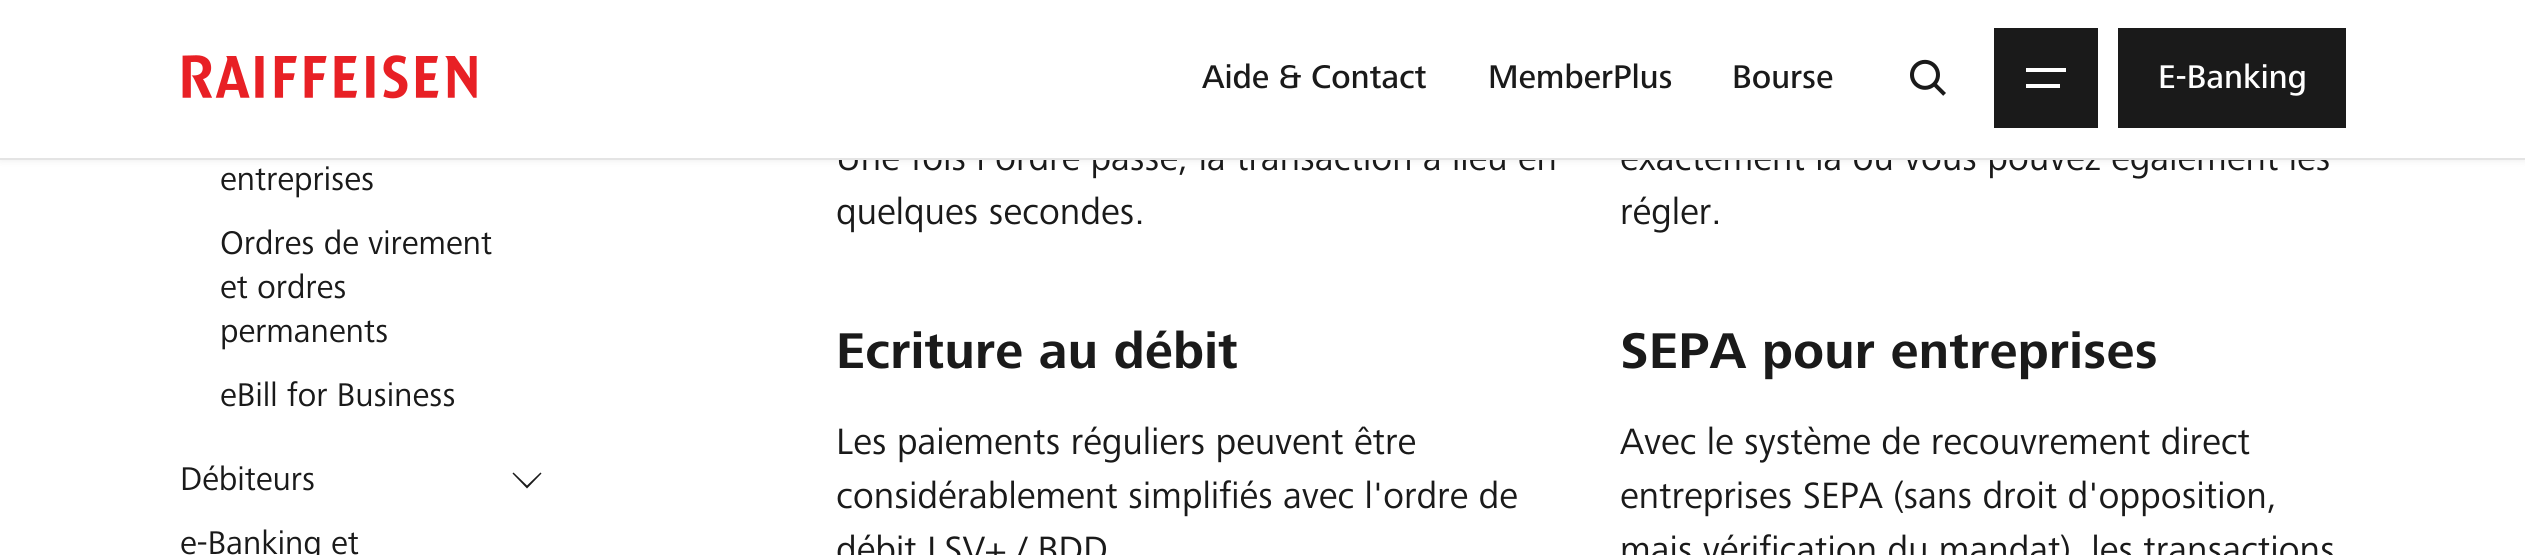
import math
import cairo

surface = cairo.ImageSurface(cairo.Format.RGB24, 2525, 555)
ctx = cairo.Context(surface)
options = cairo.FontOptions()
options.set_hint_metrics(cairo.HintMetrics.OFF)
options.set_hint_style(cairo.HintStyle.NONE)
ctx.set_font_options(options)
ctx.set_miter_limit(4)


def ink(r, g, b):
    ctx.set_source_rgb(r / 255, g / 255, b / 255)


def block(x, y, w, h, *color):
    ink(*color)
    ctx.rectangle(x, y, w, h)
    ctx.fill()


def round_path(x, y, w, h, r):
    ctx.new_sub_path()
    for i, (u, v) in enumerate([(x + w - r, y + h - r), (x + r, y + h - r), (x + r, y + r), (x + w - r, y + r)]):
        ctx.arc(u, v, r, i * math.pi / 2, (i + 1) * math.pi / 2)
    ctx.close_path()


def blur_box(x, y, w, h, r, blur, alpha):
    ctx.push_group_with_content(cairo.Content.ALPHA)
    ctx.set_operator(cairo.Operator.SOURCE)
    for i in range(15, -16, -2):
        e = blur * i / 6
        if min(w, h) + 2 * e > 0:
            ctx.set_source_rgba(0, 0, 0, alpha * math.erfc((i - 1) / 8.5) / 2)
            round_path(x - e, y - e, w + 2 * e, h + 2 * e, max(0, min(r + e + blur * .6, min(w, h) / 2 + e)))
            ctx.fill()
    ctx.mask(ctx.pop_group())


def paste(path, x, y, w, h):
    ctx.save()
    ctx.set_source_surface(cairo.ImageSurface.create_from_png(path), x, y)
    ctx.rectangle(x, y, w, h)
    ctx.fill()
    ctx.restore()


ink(255, 255, 255)
ctx.paint()
paste("pic7.png", 221, 166, 152, 32)
paste("pic14.png", 838, 160, 717, 19)
paste("pic20.png", 1621, 160, 708, 19)
ink(0, 0, 0)
blur_box(0, 2, 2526, 160, 0, 3, 0.05)
block(0, 0, 2525, 158, 255, 255, 255)
block(0, 158, 2525, 2, 228, 228, 228)
paste("pic1.png", 182, 55, 295, 44)
paste("pic2.png", 1202, 63, 224, 26)
paste("pic3.png", 1490, 63, 182, 26)
paste("pic4.png", 1734, 65, 99, 24)
paste("pic5.png", 1910, 59, 36, 37)
block(1994, 28, 104, 100, 26, 26, 26)
block(2026, 68, 40, 4, 255, 255, 255)
block(2026, 84, 34, 4, 255, 255, 255)
block(2118, 28, 228, 100, 26, 26, 26)
paste("pic6.png", 2160, 63, 145, 33)
paste("pic8.png", 221, 229, 271, 26)
paste("pic9.png", 221, 273, 124, 26)
paste("pic10.png", 222, 320, 165, 30)
paste("pic11.png", 221, 381, 234, 26)
paste("pic12.png", 182, 465, 132, 26)
ctx.new_path()
ctx.move_to(527, 488.5)
ctx.line_to(512.5, 473.5)
ctx.line_to(513.5, 472.5)
ctx.line_to(527, 485.5)
ctx.line_to(540.5, 472.5)
ctx.line_to(541.5, 473.5)
ctx.close_path()
ctx.fill()
paste("pic13.png", 181, 529, 178, 26)
paste("pic15.png", 837, 196, 305, 37)
paste("pic16.png", 839, 330, 398, 39)
paste("pic17.png", 839, 426, 577, 37)
paste("pic18.png", 837, 480, 680, 37)
paste("pic19.png", 837, 534, 269, 21)
paste("pic21.png", 1622, 196, 96, 37)
paste("pic22.png", 1623, 331, 533, 49)
paste("pic23.png", 1620, 426, 630, 37)
paste("pic24.png", 1621, 480, 653, 37)
paste("pic25.png", 1622, 534, 711, 21)
surface.write_to_png("screenshot.png")
